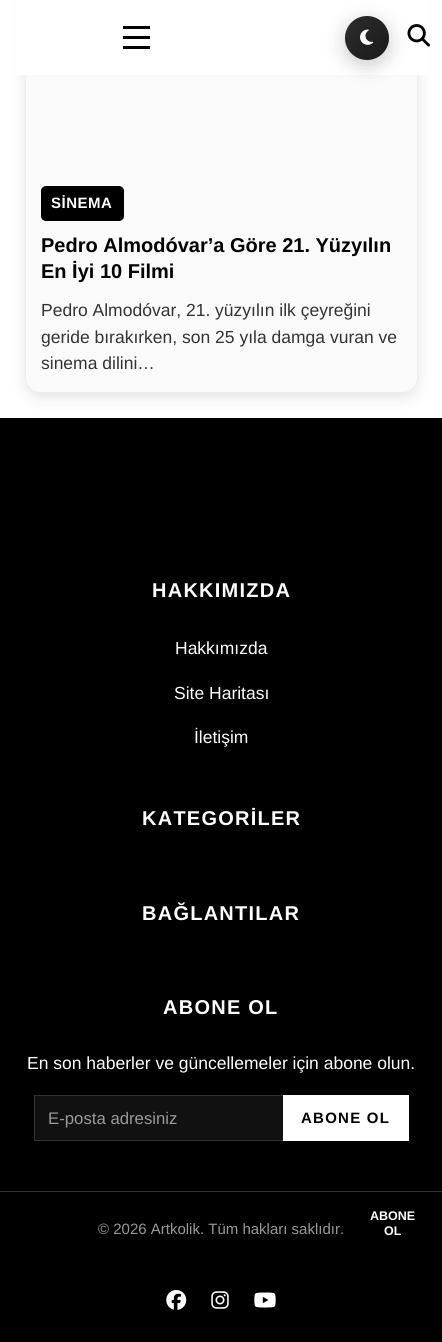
import math
import cairo

surface = cairo.ImageSurface(cairo.Format.RGB24, 442, 1342)
ctx = cairo.Context(surface)
options = cairo.FontOptions()
options.set_hint_metrics(cairo.HintMetrics.OFF)
options.set_hint_style(cairo.HintStyle.NONE)
ctx.set_font_options(options)
ctx.set_miter_limit(4)


def ink(r, g, b):
    ctx.set_source_rgb(r / 255, g / 255, b / 255)


def write(x, y, s, family, size, color, bold=False, italic=False):
    ctx.select_font_face(family, cairo.FontSlant.ITALIC if italic else cairo.FontSlant.NORMAL, cairo.FontWeight.BOLD if bold else cairo.FontWeight.NORMAL)
    ctx.set_font_size(size)
    ink(*color)
    ctx.move_to(x, y)
    ctx.show_text(s)


def write_spaced(x, y, s, letter, word):
    ctx.move_to(x, y)
    for ch in s:
        ctx.show_text(ch)
        ctx.rel_move_to(letter + word * (ch == ' '), 0)


def block(x, y, w, h, *color):
    ink(*color)
    ctx.rectangle(x, y, w, h)
    ctx.fill()


def round_path(x, y, w, h, r):
    ctx.new_sub_path()
    for i, (u, v) in enumerate([(x + w - r, y + h - r), (x + r, y + h - r), (x + r, y + r), (x + w - r, y + r)]):
        ctx.arc(u, v, r, i * math.pi / 2, (i + 1) * math.pi / 2)
    ctx.close_path()


def blur_box(x, y, w, h, r, blur, alpha):
    ctx.push_group_with_content(cairo.Content.ALPHA)
    ctx.set_operator(cairo.Operator.SOURCE)
    for i in range(15, -16, -2):
        e = blur * i / 6
        if min(w, h) + 2 * e > 0:
            ctx.set_source_rgba(0, 0, 0, alpha * math.erfc((i - 1) / 8.5) / 2)
            round_path(x - e, y - e, w + 2 * e, h + 2 * e, max(0, min(r + e + blur * .6, min(w, h) / 2 + e)))
            ctx.fill()
    ctx.mask(ctx.pop_group())


def paste(path, x, y, w, h):
    ctx.save()
    ctx.set_source_surface(cairo.ImageSurface.create_from_png(path), x, y)
    ctx.rectangle(x, y, w, h)
    ctx.fill()
    ctx.restore()


s1 = dict(family="Liberation Sans", size=20, color=(0, 0, 0), bold=True)
s2 = dict(family="Liberation Sans", size=17.5, color=(51, 51, 51))
s3 = dict(family="Liberation Sans", size=17.5, color=(255, 255, 255))
s4 = dict(family="Liberation Sans", size=16.75, color=(153, 153, 153))
s5 = dict(family="Liberation Sans", size=15, color=(153, 153, 153))
s6 = dict(family="Liberation Sans", size=12.5, color=(255, 255, 255), bold=True)

ink(255, 255, 255)
ctx.paint()
block(0, 418, 442, 924, 0, 0, 0)
ink(0, 0, 0)
blur_box(25, -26, 393, 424, 15, 7.5, 0.1)
ink(250, 250, 250)
round_path(25.5, -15.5, 392, 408, 14.5)
ctx.fill_preserve()
ink(238, 238, 238)
ctx.set_line_width(1)
ctx.stroke()
block(15, 0, 413, 75, 255, 255, 255)
block(123, 26, 27, 3, 0, 0, 0)
block(123, 36, 27, 3, 0, 0, 0)
block(123, 46, 27, 3, 0, 0, 0)
paste("pic2.png", 407, 24, 23, 23)
ink(0, 0, 0)
blur_box(345, 21, 44, 44, 22, 9.5, 0.2)
gradient = cairo.LinearGradient(345, 16, 389, 60)
gradient.add_color_stop_rgba(0, 0.173, 0.173, 0.173, 1)
gradient.add_color_stop_rgba(1, 0.102, 0.102, 0.102, 1)
ctx.set_source(gradient)
ctx.arc(367, 38, 22, 0, 2 * math.pi)
ctx.fill()
paste("pic1.png", 360, 29, 14, 16)
ink(0, 0, 0)
round_path(41, 186, 83, 35, 5)
ctx.fill()
ctx.select_font_face("Liberation Sans", cairo.FontSlant.NORMAL, cairo.FontWeight.BOLD)
ctx.set_font_size(15)
ink(255, 255, 255)
write_spaced(51, 208, "SİNEMA", 0.5, 0)
write(41, 252, "Pedro Almodóvar’a Göre 21. Yüzyılın", **s1)
write(41, 278, "En İyi 10 Filmi", **s1)
write(41, 316, "Pedro Almodóvar, 21. yüzyılın ilk çeyreğini", **s2)
write(41, 343, "geride bırakırken, son 25 yıla damga vuran ve", **s2)
write(41, 369, "sinema dilini…", **s2)
ctx.select_font_face("Liberation Sans", cairo.FontSlant.NORMAL, cairo.FontWeight.BOLD)
ctx.set_font_size(20)
ink(255, 255, 255)
write_spaced(152, 597, "HAKKIMIZDA", 1.25, 0)
write(175, 654, "Hakkımızda", **s3)
write(174, 699, "Site Haritası", **s3)
write(194, 743, "İletişim", **s3)
ctx.select_font_face("Liberation Sans", cairo.FontSlant.NORMAL, cairo.FontWeight.BOLD)
ctx.set_font_size(20)
write_spaced(142, 825, "KATEGORİLER", 1.25, 0)
write_spaced(142, 920, "BAĞLANTILAR", 1.25, 0)
write_spaced(163, 1014, "ABONE OL", 1.25, 0)
write(27, 1069, "En son haberler ve güncellemeler için abone olun.", **s3)
block(35, 1096, 248, 44, 17, 17, 17)
block(34, 1095, 249, 1, 51, 51, 51)
block(34, 1140, 249, 1, 51, 51, 51)
block(34, 1095, 1, 46, 51, 51, 51)
write(48, 1124, "E-posta adresiniz", **s4)
block(283, 1095, 126, 46, 255, 255, 255)
ctx.select_font_face("Liberation Sans", cairo.FontSlant.NORMAL, cairo.FontWeight.BOLD)
ctx.set_font_size(15)
ink(0, 0, 0)
write_spaced(301, 1123, "ABONE OL", 1.25, 0)
block(0, 1191, 442, 1, 51, 51, 51)
write(98, 1234, "© 2026 Artkolik. Tüm hakları saklıdır.", **s5)
paste("pic3.png", 166, 1290, 21, 20)
paste("pic4.png", 211, 1291, 18, 18)
paste("pic5.png", 254, 1292, 22, 16)
write(370, 1220, "ABONE", **s6)
write(384, 1235, "OL", **s6)
surface.write_to_png("screenshot.png")
